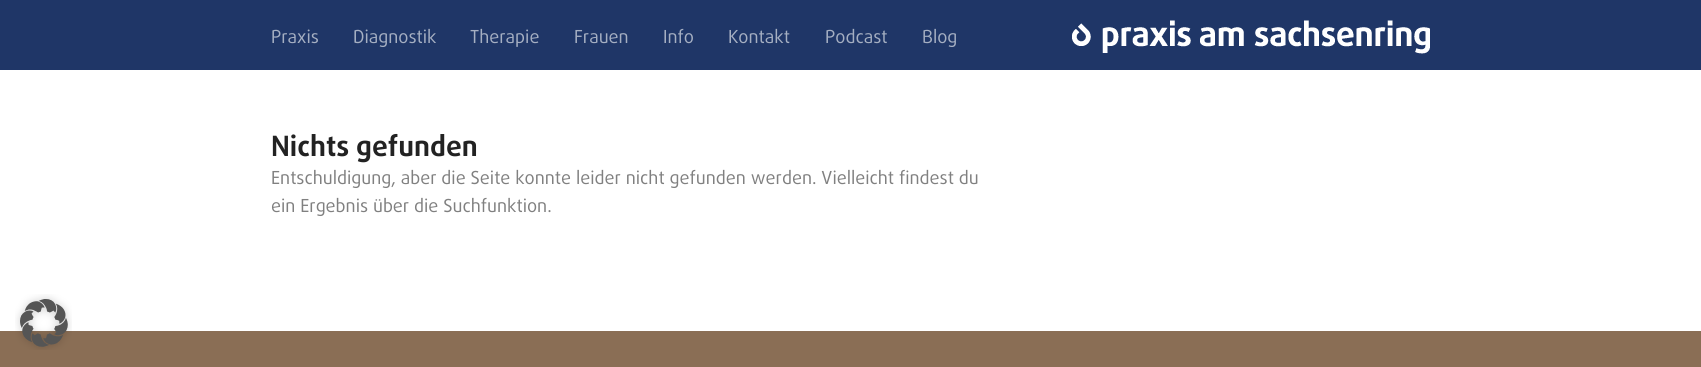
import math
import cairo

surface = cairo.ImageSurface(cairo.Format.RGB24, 1701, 367)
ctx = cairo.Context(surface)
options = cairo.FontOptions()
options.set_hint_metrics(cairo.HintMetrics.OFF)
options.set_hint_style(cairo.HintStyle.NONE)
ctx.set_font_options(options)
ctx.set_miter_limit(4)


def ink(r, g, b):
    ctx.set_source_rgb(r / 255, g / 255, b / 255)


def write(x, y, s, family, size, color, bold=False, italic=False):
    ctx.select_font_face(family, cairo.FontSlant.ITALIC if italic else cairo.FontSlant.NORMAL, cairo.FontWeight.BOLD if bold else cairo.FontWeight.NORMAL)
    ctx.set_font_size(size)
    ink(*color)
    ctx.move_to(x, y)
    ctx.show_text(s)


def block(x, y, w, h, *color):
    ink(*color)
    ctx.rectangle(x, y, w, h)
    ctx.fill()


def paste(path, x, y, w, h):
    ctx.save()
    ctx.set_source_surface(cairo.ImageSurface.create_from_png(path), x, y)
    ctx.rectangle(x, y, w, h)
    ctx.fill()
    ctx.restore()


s1 = dict(family="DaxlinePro", size=18, color=(165, 175, 194))
s2 = dict(family="DaxlinePro", size=28, color=(34, 34, 34), bold=True)
s3 = dict(family="DaxlinePro", size=18, color=(128, 128, 128))

ink(255, 255, 255)
ctx.paint()
block(0, 0, 1701, 70, 31, 54, 103)
write(271, 43, "Praxis", **s1)
write(353, 43, "Diagnostik", **s1)
write(470, 43, "Therapie", **s1)
write(574, 43, "Frauen", **s1)
write(663, 43, "Info", **s1)
write(728, 43, "Kontakt", **s1)
write(825, 43, "Podcast", **s1)
write(922, 43, "Blog", **s1)
paste("pic1.png", 1072, 20, 358, 34)
write(271, 156, "Nichts gefunden", **s2)
write(271, 184, "Entschuldigung, aber die Seite konnte leider nicht gefunden werden. Vielleicht findest du", **s3)
write(271, 212, "ein Ergebnis über die Suchfunktion.", **s3)
block(0, 331, 1701, 36, 138, 110, 85)
paste("pic2.png", 15, 294, 57, 56)
surface.write_to_png("screenshot.png")
